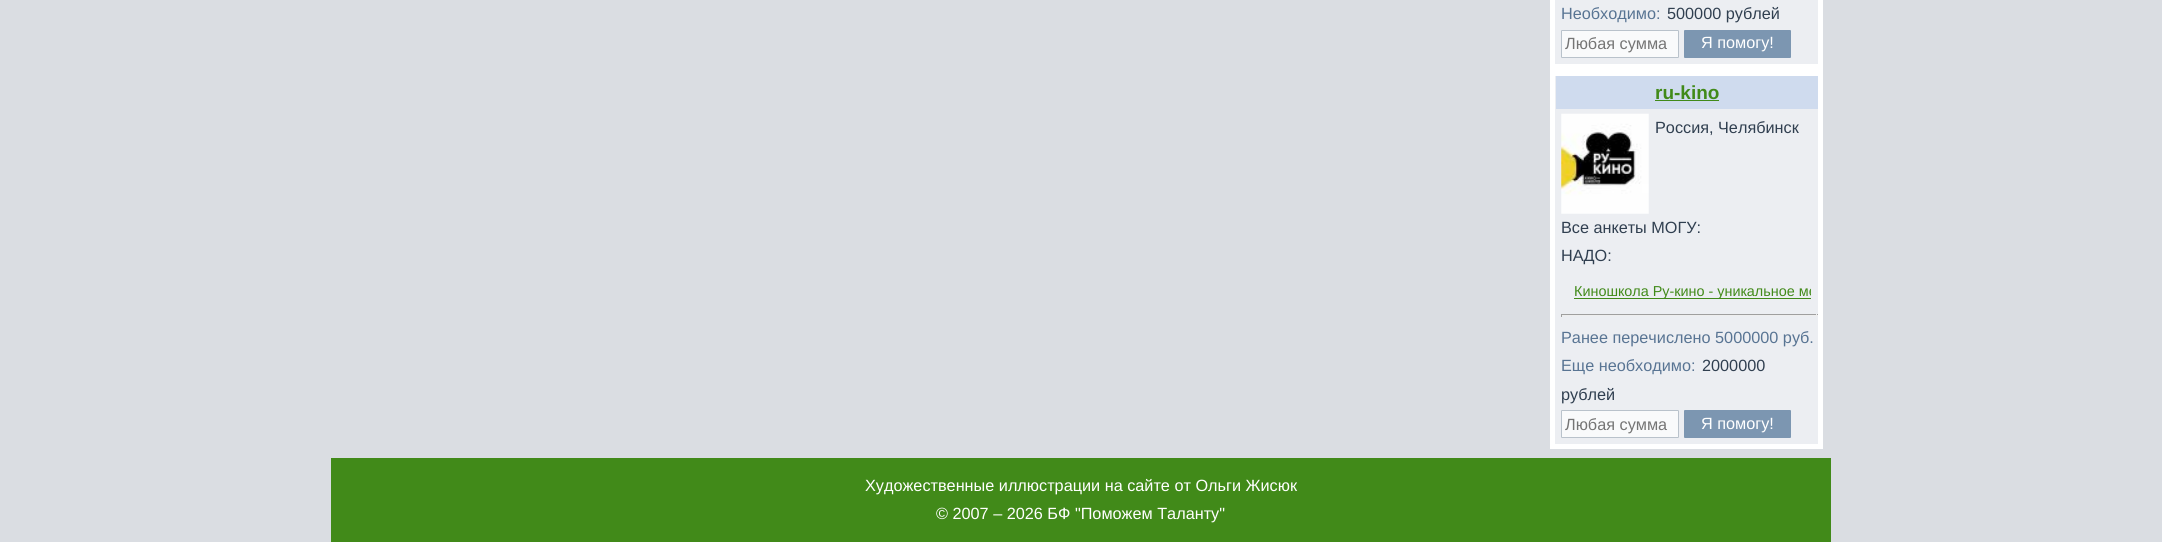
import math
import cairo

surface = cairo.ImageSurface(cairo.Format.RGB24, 2162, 542)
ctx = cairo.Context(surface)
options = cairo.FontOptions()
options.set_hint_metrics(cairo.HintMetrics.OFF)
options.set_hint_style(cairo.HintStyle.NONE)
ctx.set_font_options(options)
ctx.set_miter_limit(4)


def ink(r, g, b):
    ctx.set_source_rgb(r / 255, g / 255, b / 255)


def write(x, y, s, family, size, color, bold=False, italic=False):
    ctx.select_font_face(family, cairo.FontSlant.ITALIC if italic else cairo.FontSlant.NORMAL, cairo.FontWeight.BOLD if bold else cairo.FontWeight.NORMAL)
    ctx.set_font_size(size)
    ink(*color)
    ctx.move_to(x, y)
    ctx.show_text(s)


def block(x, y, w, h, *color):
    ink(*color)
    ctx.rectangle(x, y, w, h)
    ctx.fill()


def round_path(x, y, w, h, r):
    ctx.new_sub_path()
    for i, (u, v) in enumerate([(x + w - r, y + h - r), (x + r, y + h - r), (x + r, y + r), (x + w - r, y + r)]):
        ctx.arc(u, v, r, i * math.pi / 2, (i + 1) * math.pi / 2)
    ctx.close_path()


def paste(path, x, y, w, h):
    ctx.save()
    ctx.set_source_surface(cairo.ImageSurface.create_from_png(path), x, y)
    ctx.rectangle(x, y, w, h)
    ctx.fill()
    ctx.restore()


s1 = dict(family="Liberation Sans", size=16.25, color=(88, 116, 147))
s2 = dict(family="Liberation Sans", size=16.25, color=(48, 63, 80))
s3 = dict(family="Liberation Sans", size=16.25, color=(117, 117, 117))
s4 = dict(family="Liberation Sans", size=16.25, color=(255, 255, 255))
s5 = dict(family="Liberation Sans", size=19, color=(65, 138, 25), bold=True)
s6 = dict(family="Liberation Sans", size=14.4, color=(65, 138, 25))

ink(218, 221, 226)
ctx.paint()
block(1550, 0, 273, 449, 255, 255, 255)
block(1555, 0, 263, 64, 236, 238, 242)
write(1561, 19, "Необходимо:", **s1)
write(1667, 19, "500000 рублей", **s2)
ink(249, 250, 251)
round_path(1561.5, 30.5, 117, 27, 0.5)
ctx.fill_preserve()
ink(185, 194, 203)
ctx.set_line_width(1)
ctx.stroke()
write(1565, 49, "Любая сумма", **s3)
ink(124, 150, 177)
round_path(1684, 30, 107, 28, 1)
ctx.fill()
write(1701, 48, "Я помогу!", **s4)
block(1555, 76, 263, 368, 236, 238, 242)
block(1556, 76, 262, 33, 207, 219, 238)
write(1655, 99, "ru-kino", **s5)
block(1655, 100, 64, 1, 65, 138, 25)
paste("pic1.png", 1561, 113, 88, 101)
write(1655, 133, "Россия, Челябинск", **s2)
write(1561, 233, "Все анкеты МОГУ:", **s2)
write(1561, 261, "НАДО:", **s2)
block(1574, 298, 237, 1, 65, 138, 25)
ctx.save()
ctx.rectangle(1561, 271, 250, 34)
ctx.clip()
write(1574, 296, "Киношкола Ру-кино - уникальное ме", **s6)
ctx.restore()
block(1561, 314, 257, 1, 159, 159, 159)
block(1816, 314, 1, 3, 238, 238, 238)
block(1561, 315, 257, 1, 238, 238, 238)
block(1561, 314, 1, 3, 159, 159, 159)
write(1561, 343, "Ранее перечислено 5000000 руб.", **s1)
write(1561, 371, "Еще необходимо:", **s1)
write(1702, 371, "2000000", **s2)
write(1561, 400, "рублей", **s2)
ink(249, 250, 251)
round_path(1561.5, 410.5, 117, 27, 0.5)
ctx.fill_preserve()
ink(185, 194, 203)
ctx.stroke()
write(1565, 430, "Любая сумма", **s3)
ink(124, 150, 177)
round_path(1684, 410, 107, 28, 1)
ctx.fill()
write(1701, 429, "Я помогу!", **s4)
block(331, 458, 1500, 84, 65, 138, 25)
write(865, 491, "Художественные иллюстрации на сайте от Ольги Жисюк", **s4)
write(936, 519, "© 2007 – 2026 БФ \"Поможем Таланту\"", **s4)
surface.write_to_png("screenshot.png")
